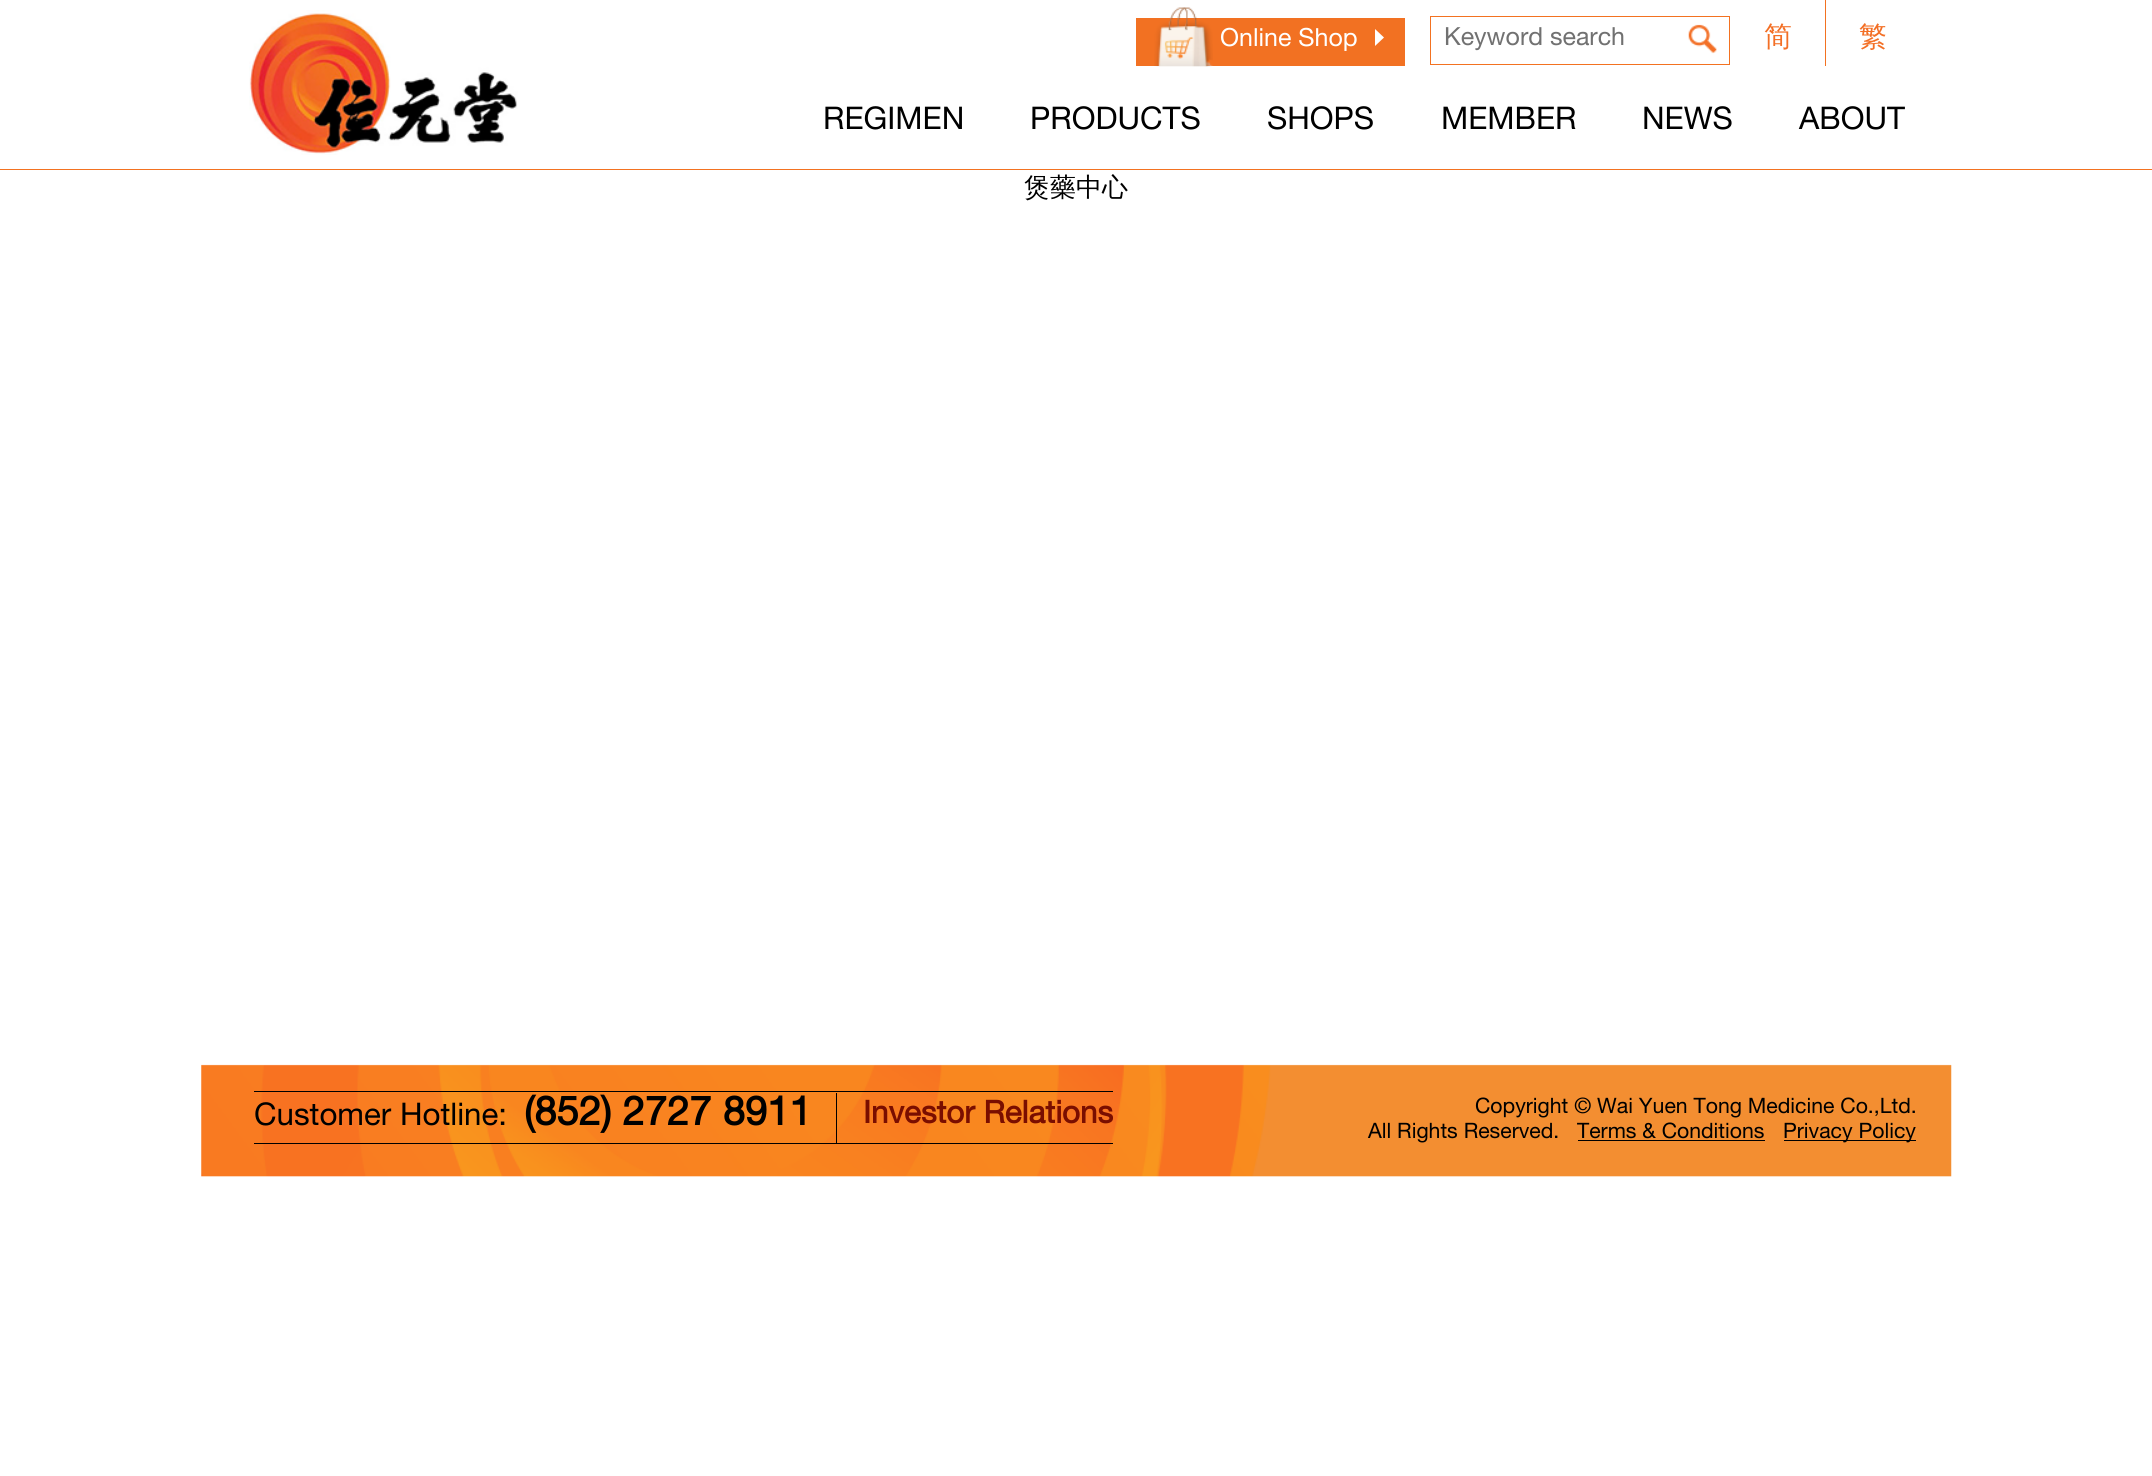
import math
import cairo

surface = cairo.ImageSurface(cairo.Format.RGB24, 2152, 1476)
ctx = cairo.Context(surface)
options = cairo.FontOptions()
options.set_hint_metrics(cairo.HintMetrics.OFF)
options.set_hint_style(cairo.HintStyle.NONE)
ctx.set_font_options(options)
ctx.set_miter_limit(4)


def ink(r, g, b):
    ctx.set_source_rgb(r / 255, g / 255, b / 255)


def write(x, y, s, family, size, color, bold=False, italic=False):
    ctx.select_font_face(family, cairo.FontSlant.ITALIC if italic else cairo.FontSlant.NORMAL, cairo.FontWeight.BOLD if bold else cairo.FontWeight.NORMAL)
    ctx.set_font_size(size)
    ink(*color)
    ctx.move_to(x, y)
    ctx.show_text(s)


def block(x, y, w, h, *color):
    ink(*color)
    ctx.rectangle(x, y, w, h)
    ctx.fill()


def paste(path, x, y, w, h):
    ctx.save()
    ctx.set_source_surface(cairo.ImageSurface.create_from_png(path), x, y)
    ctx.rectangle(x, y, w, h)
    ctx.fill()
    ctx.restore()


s1 = dict(family="Helvetica Neue", size=25, color=(255, 255, 255))
s2 = dict(family="Helvetica Neue", size=25, color=(113, 113, 113))
s3 = dict(family="WenQuanYi Zen Hei Medium", size=28, color=(243, 111, 37))
s4 = dict(family="Helvetica Neue", size=31.25, color=(0, 0, 0))
s5 = dict(family="WenQuanYi Zen Hei Medium", size=26, color=(0, 0, 0))
s6 = dict(family="Helvetica Neue", size=40, color=(0, 0, 0), bold=True)
s7 = dict(family="Helvetica Neue", size=31.25, color=(122, 14, 0), bold=True)
s8 = dict(family="Helvetica Neue", size=21.25, color=(0, 0, 0))

ink(255, 255, 255)
ctx.paint()
block(0, 169, 2152, 1, 243, 114, 33)
paste("pic1.png", 249, 10, 269, 145)
block(1136, 18, 269, 48, 242, 113, 34)
paste("pic2.png", 1154, 7, 59, 60)
write(1220, 46, "Online Shop", **s1)
ctx.new_path()
ctx.move_to(1375, 46)
ctx.line_to(1375, 29)
ctx.line_to(1384, 37.5)
ctx.close_path()
ctx.fill()
ctx.rectangle(1430.5, 16.5, 299, 48)
ink(243, 114, 33)
ctx.set_line_width(1)
ctx.stroke()
write(1444, 45, "Keyword search", **s2)
paste("pic3.png", 1688, 24, 29, 30)
write(1764, 46, "简", **s3)
block(1825, 0, 1, 66, 243, 114, 33)
write(1859, 46, "繁", **s3)
write(823, 129, "REGIMEN", **s4)
write(1030, 129, "PRODUCTS", **s4)
write(1267, 129, "SHOPS", **s4)
write(1441, 129, "MEMBER", **s4)
write(1642, 129, "NEWS", **s4)
write(1799, 129, "ABOUT", **s4)
write(1024, 196, "煲藥中心", **s5)
paste("pic4.png", 201, 1064, 1751, 113)
block(254, 1091, 859, 1, 0, 0, 0)
block(254, 1143, 859, 1, 0, 0, 0)
write(254, 1125, "Customer Hotline:", **s4)
write(524, 1125, "(852) 2727 8911", **s6)
block(836, 1093, 1, 50, 0, 0, 0)
write(863, 1123, "Investor Relations", **s7)
write(1475, 1113, "Copyright © Wai Yuen Tong Medicine Co.,Ltd.", **s8)
write(1368, 1138, "All Rights Reserved.", **s8)
write(1577, 1138, "Terms & Conditions", **s8)
block(1578, 1140, 187, 1, 0, 0, 0)
block(1784, 1140, 132, 1, 0, 0, 0)
write(1783, 1138, "Privacy Policy", **s8)
surface.write_to_png("screenshot.png")
